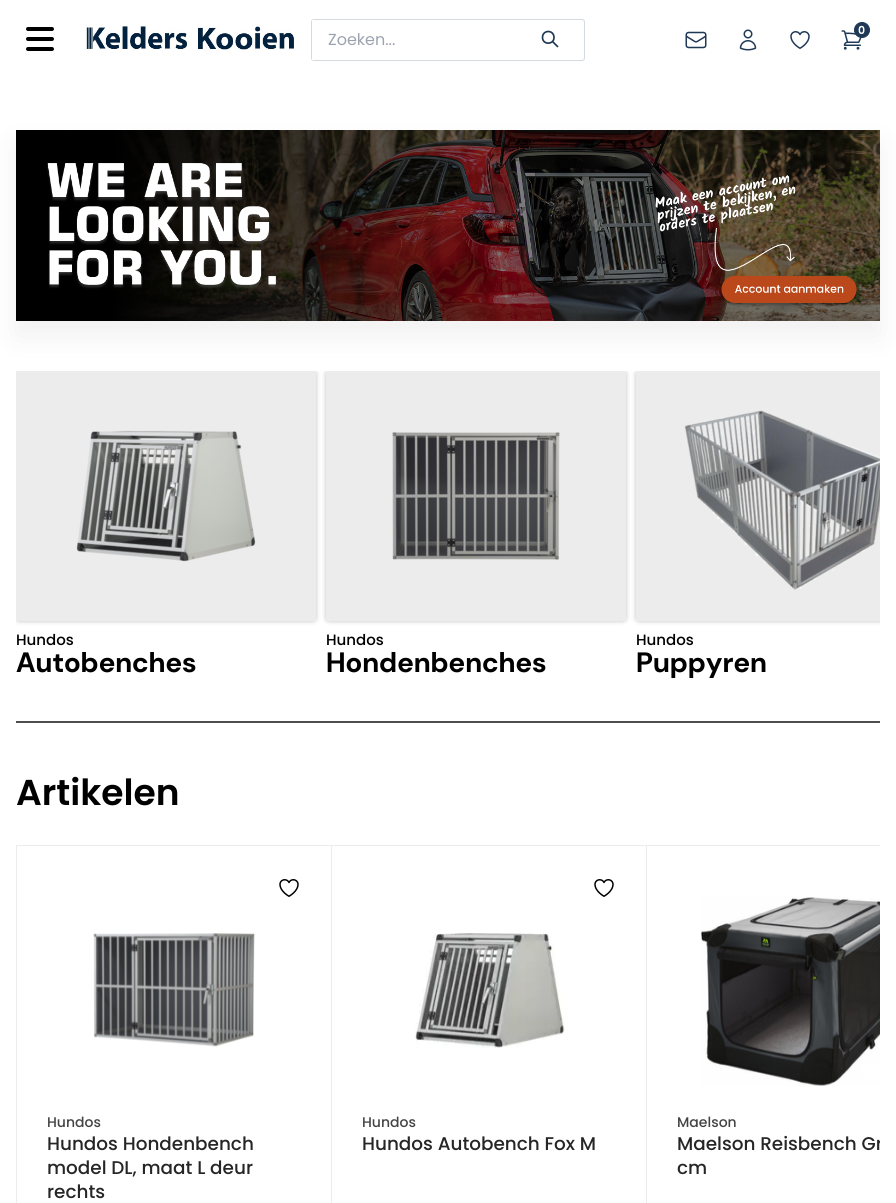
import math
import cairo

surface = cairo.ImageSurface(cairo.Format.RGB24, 896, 1203)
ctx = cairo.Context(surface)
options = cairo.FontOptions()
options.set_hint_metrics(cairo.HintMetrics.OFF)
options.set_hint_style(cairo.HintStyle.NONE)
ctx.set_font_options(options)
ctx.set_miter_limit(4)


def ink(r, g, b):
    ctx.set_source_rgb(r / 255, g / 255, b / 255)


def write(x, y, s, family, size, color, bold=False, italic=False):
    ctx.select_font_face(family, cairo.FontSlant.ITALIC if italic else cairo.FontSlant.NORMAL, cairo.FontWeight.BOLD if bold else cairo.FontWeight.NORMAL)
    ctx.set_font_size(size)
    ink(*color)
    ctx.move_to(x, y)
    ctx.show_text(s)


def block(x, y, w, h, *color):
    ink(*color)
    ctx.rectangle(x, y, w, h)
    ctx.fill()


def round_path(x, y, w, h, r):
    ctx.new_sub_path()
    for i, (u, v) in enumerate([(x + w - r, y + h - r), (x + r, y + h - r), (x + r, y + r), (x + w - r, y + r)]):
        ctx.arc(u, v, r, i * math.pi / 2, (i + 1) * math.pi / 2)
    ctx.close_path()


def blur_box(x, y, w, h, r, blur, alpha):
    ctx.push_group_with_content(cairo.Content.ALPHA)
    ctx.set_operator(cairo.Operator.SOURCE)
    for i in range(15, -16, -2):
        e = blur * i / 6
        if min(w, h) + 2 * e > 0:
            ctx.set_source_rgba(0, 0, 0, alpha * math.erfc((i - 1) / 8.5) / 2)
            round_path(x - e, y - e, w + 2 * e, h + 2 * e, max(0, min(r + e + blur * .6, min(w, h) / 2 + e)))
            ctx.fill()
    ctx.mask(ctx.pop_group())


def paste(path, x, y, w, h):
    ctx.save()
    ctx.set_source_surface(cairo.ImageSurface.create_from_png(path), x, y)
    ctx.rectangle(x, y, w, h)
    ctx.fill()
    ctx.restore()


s1 = dict(family="Poppins", size=16, color=(156, 163, 175))
s2 = dict(family="Poppins SemiBold", size=11, color=(255, 255, 255))
s3 = dict(family="Poppins Medium", size=15, color=(0, 0, 0))
s4 = dict(family="DM Sans", size=28, color=(0, 0, 0), bold=True)
s5 = dict(family="Poppins SemiBold", size=36, color=(0, 0, 0))
s6 = dict(family="Poppins Medium", size=14, color=(68, 68, 68))
s7 = dict(family="Poppins Medium", size=18.4, color=(38, 38, 38))

ink(255, 255, 255)
ctx.paint()
paste("pic1.png", 26, 27, 28, 24)
paste("pic2.png", 86, 25, 208, 25)
round_path(311.5, 19.5, 273, 41, 2.5)
ink(213, 218, 223)
ctx.set_line_width(1)
ctx.stroke()
block(312, 20, 2, 40, 255, 255, 255)
write(328, 45, "Zoeken...", **s1)
ctx.new_path()
ctx.move_to(557.5, 46.5)
ctx.line_to(552.5, 41.5)
ctx.move_to(554, 37.5)
ctx.curve_to(554, 45, 542.5, 45, 542.5, 37.5)
ctx.curve_to(542.5, 29.5, 554, 29.5, 554, 37.5)
ctx.close_path()
ink(31, 56, 85)
ctx.set_line_width(1.7)
ctx.set_line_cap(cairo.LineCap.ROUND)
ctx.set_line_join(cairo.LineJoin.ROUND)
ctx.stroke()
paste("pic3.png", 685, 31, 22, 18)
paste("pic4.png", 739, 29, 18, 22)
paste("pic5.png", 790, 31, 20, 18)
paste("pic6.png", 841, 30, 21, 20)
ctx.arc(862, 30, 7.5, 0, 2 * math.pi)
ctx.fill_preserve()
ctx.set_line_width(1)
ctx.set_line_cap(cairo.LineCap.BUTT)
ctx.set_line_join(cairo.LineJoin.MITER)
ctx.stroke()
write(858, 34, "0", **s2)
ink(0, 0, 0)
blur_box(16, 145, 864, 191, 0, 15, 0.06)
paste("pic7.png", 16, 130, 864, 191)
block(16, 721, 864, 2, 78, 78, 78)
ctx.save()
ctx.rectangle(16, 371, 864, 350)
ctx.clip()
ink(0, 0, 0)
blur_box(16, 371, 300, 250, 3, 2.5, 0.25)
ctx.restore()
block(16, 371, 300, 250, 236, 236, 236)
paste("pic8.png", 76, 430, 180, 132)
write(16, 645, "Hundos", **s3)
write(16, 672, "Autobenches", **s4)
ctx.save()
ctx.rectangle(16, 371, 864, 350)
ctx.clip()
ink(0, 0, 0)
blur_box(326, 371, 300, 250, 3, 2.5, 0.25)
ctx.restore()
block(326, 371, 300, 250, 236, 236, 236)
paste("pic9.png", 392, 432, 168, 128)
write(326, 645, "Hundos", **s3)
write(326, 672, "Hondenbenches", **s4)
ctx.save()
ctx.rectangle(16, 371, 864, 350)
ctx.clip()
ink(0, 0, 0)
blur_box(636, 371, 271, 250, 3, 2.5, 0.25)
ctx.restore()
block(636, 371, 244, 250, 236, 236, 236)
paste("pic10.png", 685, 410, 195, 180)
write(636, 645, "Hundos", **s3)
write(636, 672, "Puppyren", **s4)
write(16, 805, "Artikelen", **s5)
block(16, 845, 864, 1, 236, 236, 236)
block(16, 845, 1, 358, 236, 236, 236)
paste("pic11.png", 279, 879, 20, 18)
paste("pic12.png", 93, 933, 162, 114)
write(47, 1127, "Hundos", **s6)
write(47, 1150, "Hundos Hondenbench", **s7)
write(47, 1174, "model DL, maat L deur", **s7)
write(47, 1198, "rechts", **s7)
block(331, 845, 1, 358, 236, 236, 236)
paste("pic11.png", 594, 879, 20, 18)
paste("pic13.png", 415, 933, 150, 115)
write(362, 1127, "Hundos", **s6)
write(362, 1150, "Hundos Autobench Fox M", **s7)
block(646, 845, 1, 358, 236, 236, 236)
paste("pic14.png", 701, 897, 179, 189)
write(677, 1127, "Maelson", **s6)
ctx.save()
ctx.rectangle(677, 1132, 203, 70)
ctx.clip()
write(677, 1150, "Maelson Reisbench Gr", **s7)
ctx.restore()
write(677, 1174, "cm", **s7)
surface.write_to_png("screenshot.png")
